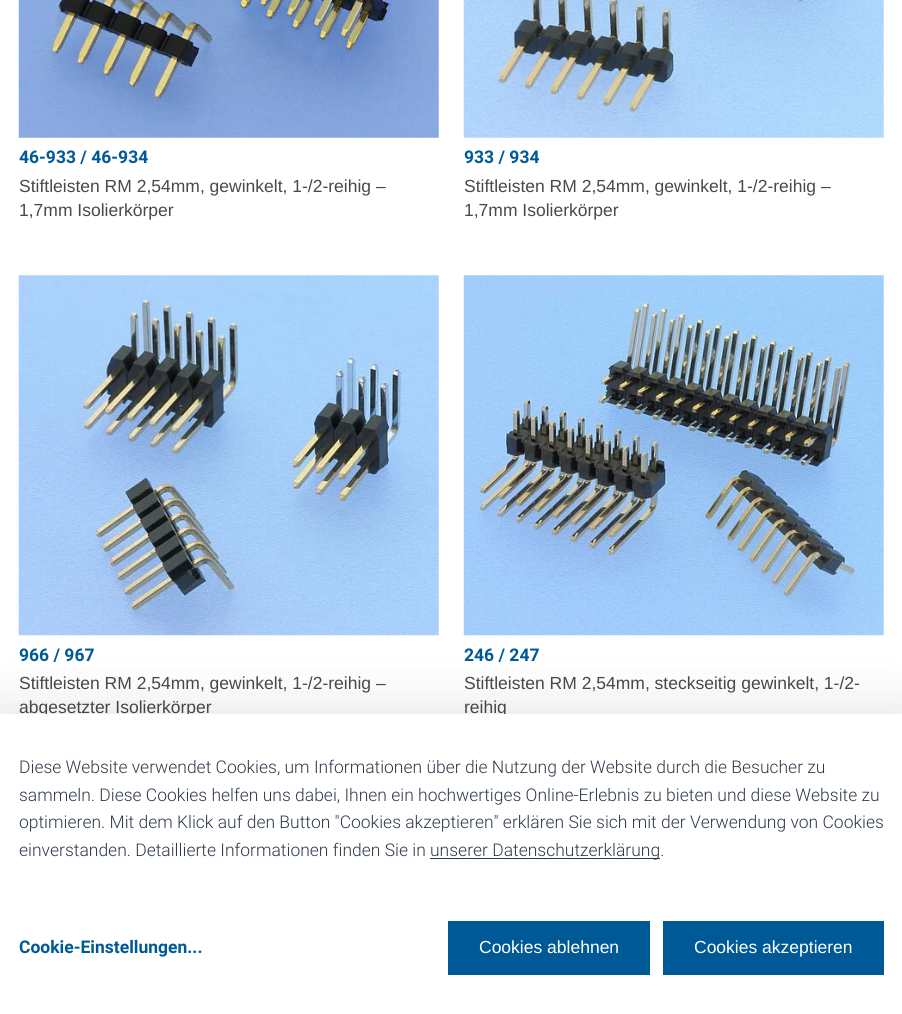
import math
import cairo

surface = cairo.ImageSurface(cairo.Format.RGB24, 902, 1014)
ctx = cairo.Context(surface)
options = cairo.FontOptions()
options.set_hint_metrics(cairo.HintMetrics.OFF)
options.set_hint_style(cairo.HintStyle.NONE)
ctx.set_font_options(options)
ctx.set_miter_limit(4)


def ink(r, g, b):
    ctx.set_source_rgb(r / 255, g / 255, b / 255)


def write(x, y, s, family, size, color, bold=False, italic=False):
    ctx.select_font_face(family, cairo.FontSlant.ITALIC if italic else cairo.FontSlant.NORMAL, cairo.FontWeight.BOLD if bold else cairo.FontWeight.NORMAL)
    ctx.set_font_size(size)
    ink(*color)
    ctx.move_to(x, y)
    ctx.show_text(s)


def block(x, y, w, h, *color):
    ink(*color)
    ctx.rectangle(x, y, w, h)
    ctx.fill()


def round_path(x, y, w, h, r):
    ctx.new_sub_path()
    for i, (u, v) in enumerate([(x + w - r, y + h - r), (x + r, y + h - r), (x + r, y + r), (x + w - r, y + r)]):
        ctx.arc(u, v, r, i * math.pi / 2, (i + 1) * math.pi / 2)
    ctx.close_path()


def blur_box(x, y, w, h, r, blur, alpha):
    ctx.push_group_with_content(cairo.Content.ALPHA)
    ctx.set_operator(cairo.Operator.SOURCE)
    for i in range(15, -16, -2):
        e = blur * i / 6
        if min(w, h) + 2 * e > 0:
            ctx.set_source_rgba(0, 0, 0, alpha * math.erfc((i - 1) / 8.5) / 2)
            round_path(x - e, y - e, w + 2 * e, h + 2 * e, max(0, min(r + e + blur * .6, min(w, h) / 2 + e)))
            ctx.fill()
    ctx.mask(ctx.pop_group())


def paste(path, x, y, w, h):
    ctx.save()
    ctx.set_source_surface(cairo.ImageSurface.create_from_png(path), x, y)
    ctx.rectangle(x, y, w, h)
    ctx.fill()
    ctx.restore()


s1 = dict(family="Roboto", size=17.5, color=(0, 89, 151), bold=True)
s2 = dict(family="Liberation Sans", size=17.5, color=(73, 73, 73))
s3 = dict(family="Roboto Light", size=17.5, color=(45, 57, 72))
s4 = dict(family="Liberation Sans", size=17.5, color=(255, 255, 255))

ink(255, 255, 255)
ctx.paint()
paste("pic1.png", 18, 0, 421, 138)
write(19, 163, "46-933 / 46-934", **s1)
write(19, 192, "Stiftleisten RM 2,54mm, gewinkelt, 1-/2-reihig –", **s2)
write(19, 216, "1,7mm Isolierkörper", **s2)
paste("pic2.png", 463, 0, 421, 138)
write(464, 163, "933 / 934", **s1)
write(464, 192, "Stiftleisten RM 2,54mm, gewinkelt, 1-/2-reihig –", **s2)
write(464, 216, "1,7mm Isolierkörper", **s2)
paste("pic3.png", 18, 275, 421, 361)
write(19, 661, "966 / 967", **s1)
write(19, 689, "Stiftleisten RM 2,54mm, gewinkelt, 1-/2-reihig –", **s2)
write(19, 713, "abgesetzter Isolierkörper", **s2)
paste("pic4.png", 463, 275, 421, 361)
write(464, 661, "246 / 247", **s1)
write(464, 689, "Stiftleisten RM 2,54mm, steckseitig gewinkelt, 1-/2-", **s2)
write(464, 713, "reihig", **s2)
ink(0, 0, 0)
blur_box(0, 716, 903, 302, 0, 31, 0.13)
block(0, 714, 902, 300, 255, 255, 255)
write(19, 773, "Diese Website verwendet Cookies, um Informationen über die Nutzung der Website durch die Besucher zu", **s3)
write(19, 801, "sammeln. Diese Cookies helfen uns dabei, Ihnen ein hochwertiges Online-Erlebnis zu bieten und diese Website zu", **s3)
write(19, 828, "optimieren. Mit dem Klick auf den Button \"Cookies akzeptieren\" erklären Sie sich mit der Verwendung von Cookies", **s3)
write(19, 856, "einverstanden. Detaillierte Informationen finden Sie in", **s3)
block(430, 858, 230, 1, 45, 57, 72)
write(430, 856, "unserer Datenschutzerklärung.", **s3)
write(19, 953, "Cookie-Einstellungen...", **s1)
block(448, 921, 202, 54, 0, 89, 151)
write(479, 953, "Cookies ablehnen", **s4)
block(663, 921, 221, 54, 0, 89, 151)
write(694, 953, "Cookies akzeptieren", **s4)
surface.write_to_png("screenshot.png")
